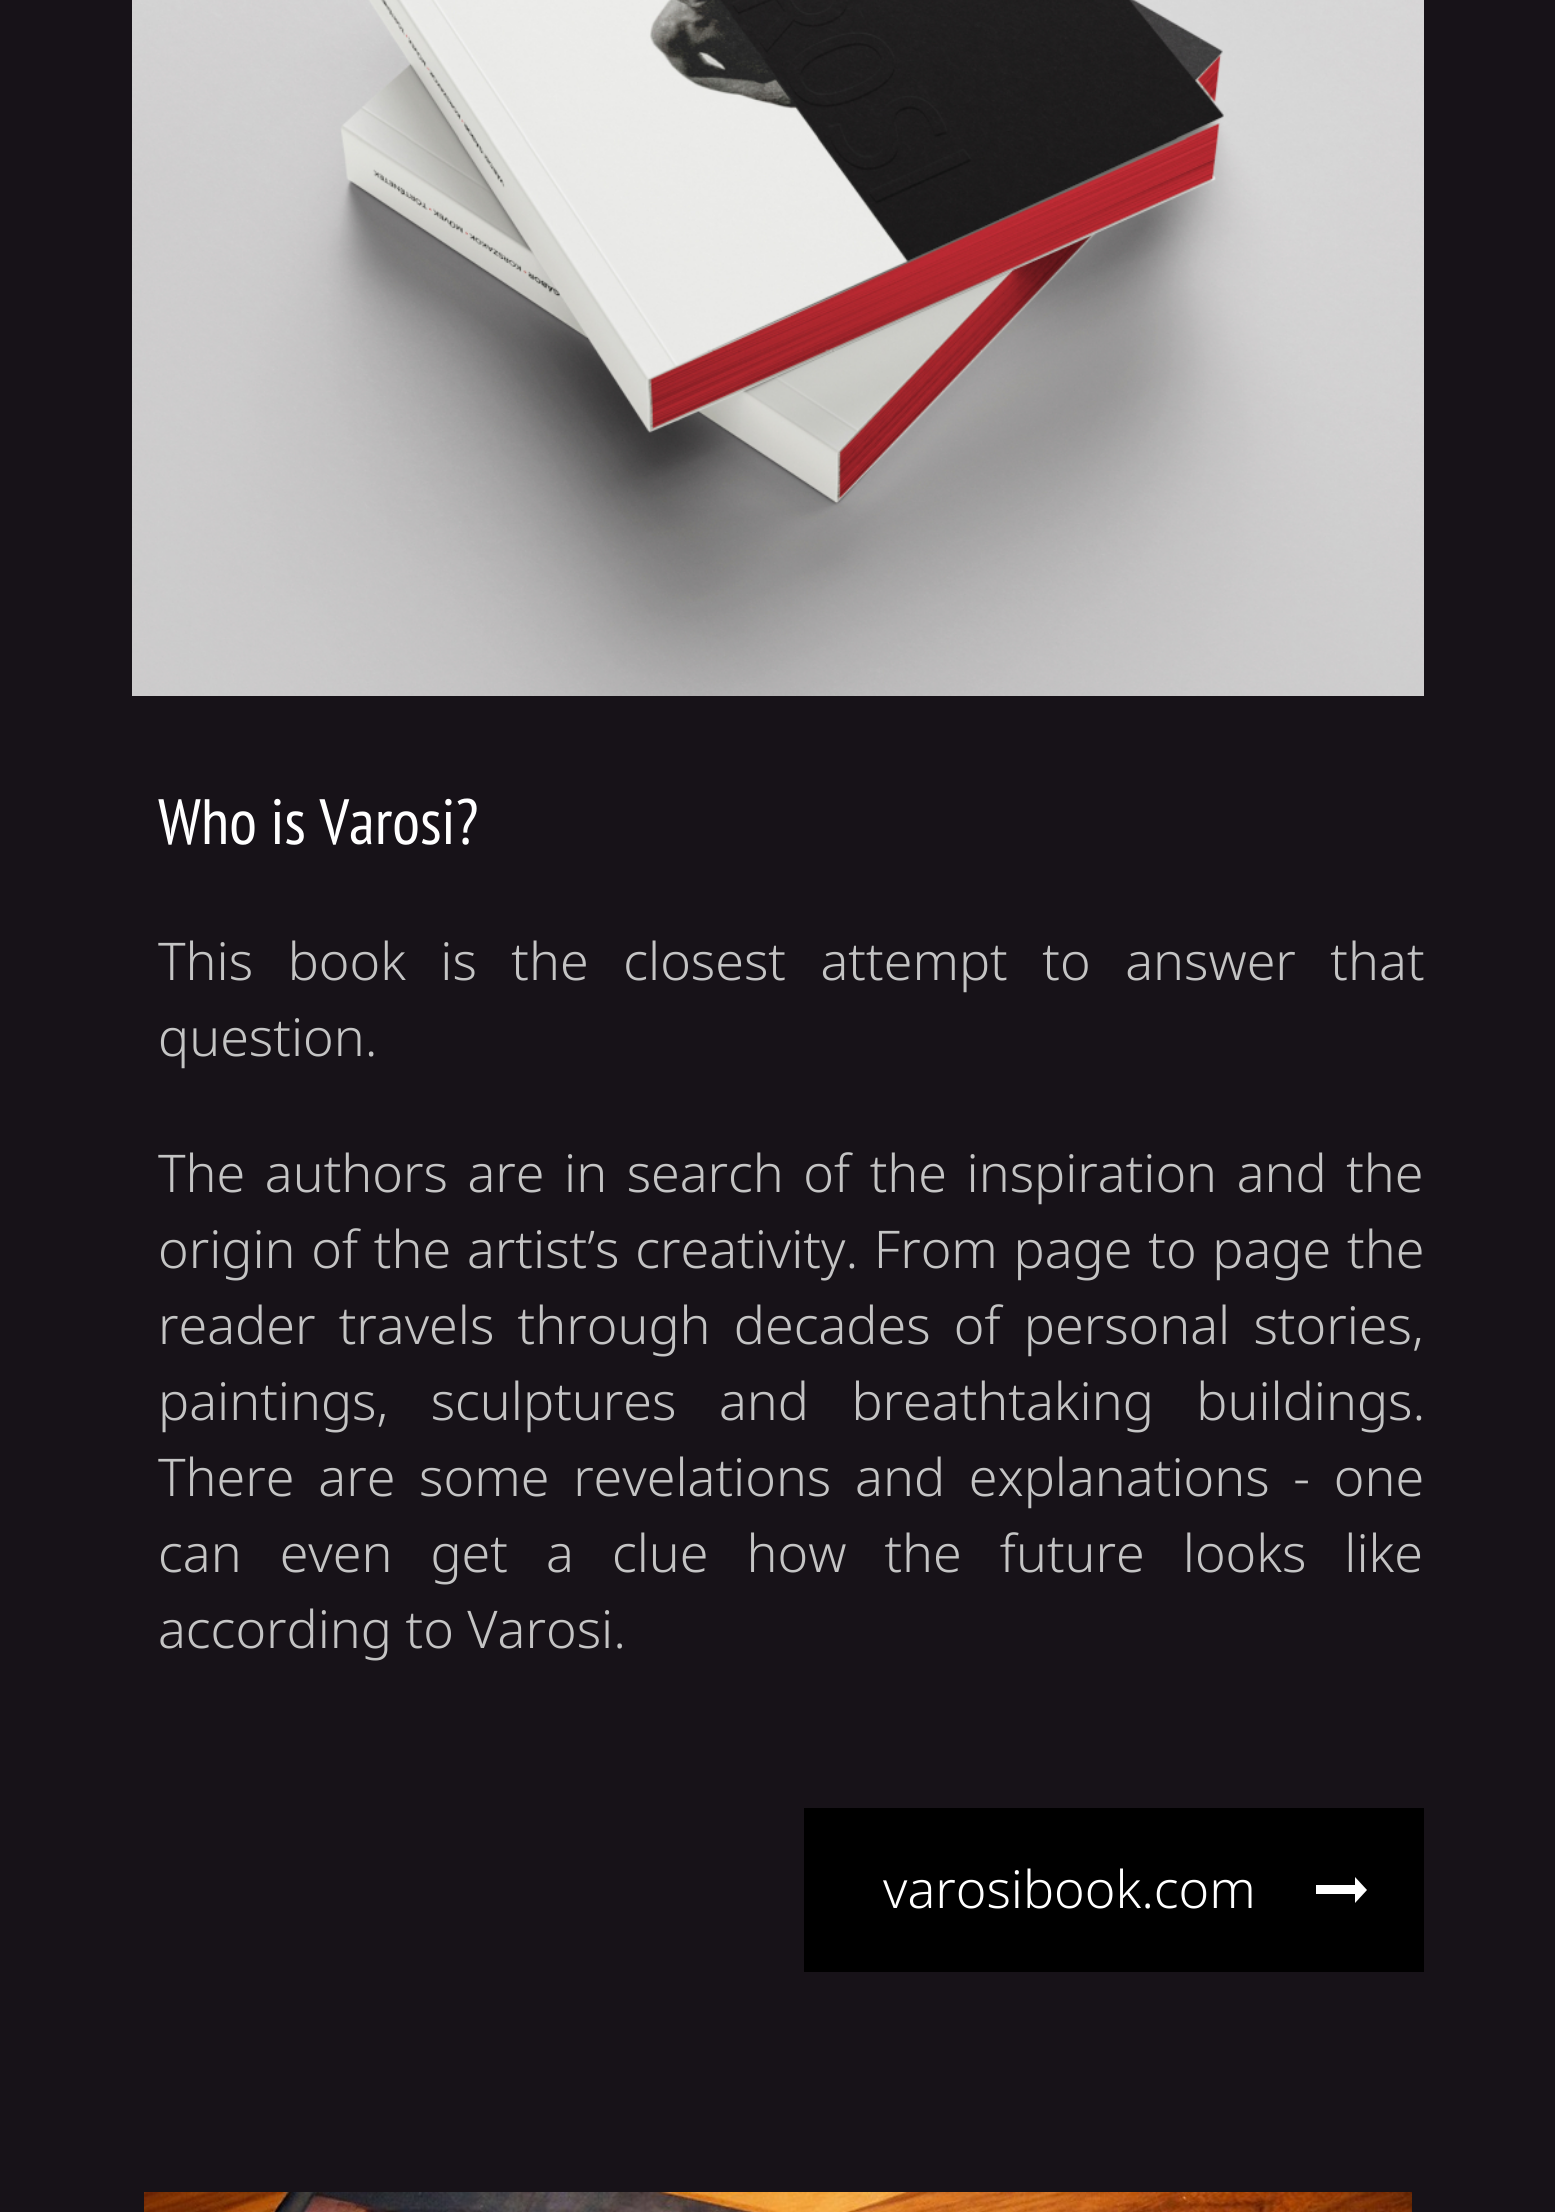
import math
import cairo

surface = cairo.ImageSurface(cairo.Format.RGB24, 1555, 2212)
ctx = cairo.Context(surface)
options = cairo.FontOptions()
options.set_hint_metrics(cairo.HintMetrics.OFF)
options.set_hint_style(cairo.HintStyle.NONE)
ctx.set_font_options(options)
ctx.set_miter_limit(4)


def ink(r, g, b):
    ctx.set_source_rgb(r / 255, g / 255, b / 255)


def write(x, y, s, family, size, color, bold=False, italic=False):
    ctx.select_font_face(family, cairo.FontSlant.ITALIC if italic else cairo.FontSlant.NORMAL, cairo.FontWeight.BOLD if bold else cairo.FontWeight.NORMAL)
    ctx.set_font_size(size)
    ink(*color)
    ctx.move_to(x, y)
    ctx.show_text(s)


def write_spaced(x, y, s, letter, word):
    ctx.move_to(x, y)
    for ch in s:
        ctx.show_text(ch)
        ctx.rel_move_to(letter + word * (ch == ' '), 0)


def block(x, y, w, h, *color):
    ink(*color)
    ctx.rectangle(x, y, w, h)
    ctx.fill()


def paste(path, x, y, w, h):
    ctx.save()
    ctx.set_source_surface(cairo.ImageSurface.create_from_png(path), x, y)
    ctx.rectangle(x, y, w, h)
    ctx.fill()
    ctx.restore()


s1 = dict(family="PT Sans Narrow", size=64, color=(255, 255, 255))
s2 = dict(family="Noto Sans Light", size=52, color=(196, 196, 196))
s3 = dict(family="Noto Sans Light", size=52, color=(255, 255, 255))

ink(23, 18, 24)
ctx.paint()
paste("pic1.png", 132, 0, 1292, 696)
write(158, 844, "Who is Varosi?", **s1)
ctx.select_font_face("Noto Sans Light")
ctx.set_font_size(52)
ink(196, 196, 196)
write_spaced(158, 980, "This book is the closest attempt to answer that", 0, 21)
write(158, 1056, "question.", **s2)
write_spaced(158, 1192, "The authors are in search of the inspiration and the", 0, 6)
write_spaced(158, 1268, "origin of the artist’s creativity. From page to page the", 0, 2.25)
write_spaced(158, 1344, "reader travels through decades of personal stories,", 0, 9.75)
write_spaced(158, 1420, "paintings, sculptures and breathtaking buildings.", 0, 29)
write_spaced(158, 1496, "There are some revelations and explanations - one", 0, 10.25)
write_spaced(158, 1572, "can even get a clue how the future looks like", 0, 24.5)
write(158, 1648, "according to Varosi.", **s2)
block(804, 1808, 620, 164, 0, 0, 0)
write(883, 1908, "varosibook.com", **s3)
ctx.new_path()
ctx.move_to(1355, 1903)
ctx.line_to(1355, 1894)
ctx.line_to(1316, 1894)
ctx.line_to(1316, 1885)
ctx.line_to(1355, 1885)
ctx.line_to(1355, 1877)
ctx.line_to(1367, 1890)
ctx.close_path()
ctx.fill()
paste("pic2.png", 144, 2192, 1268, 20)
surface.write_to_png("screenshot.png")
